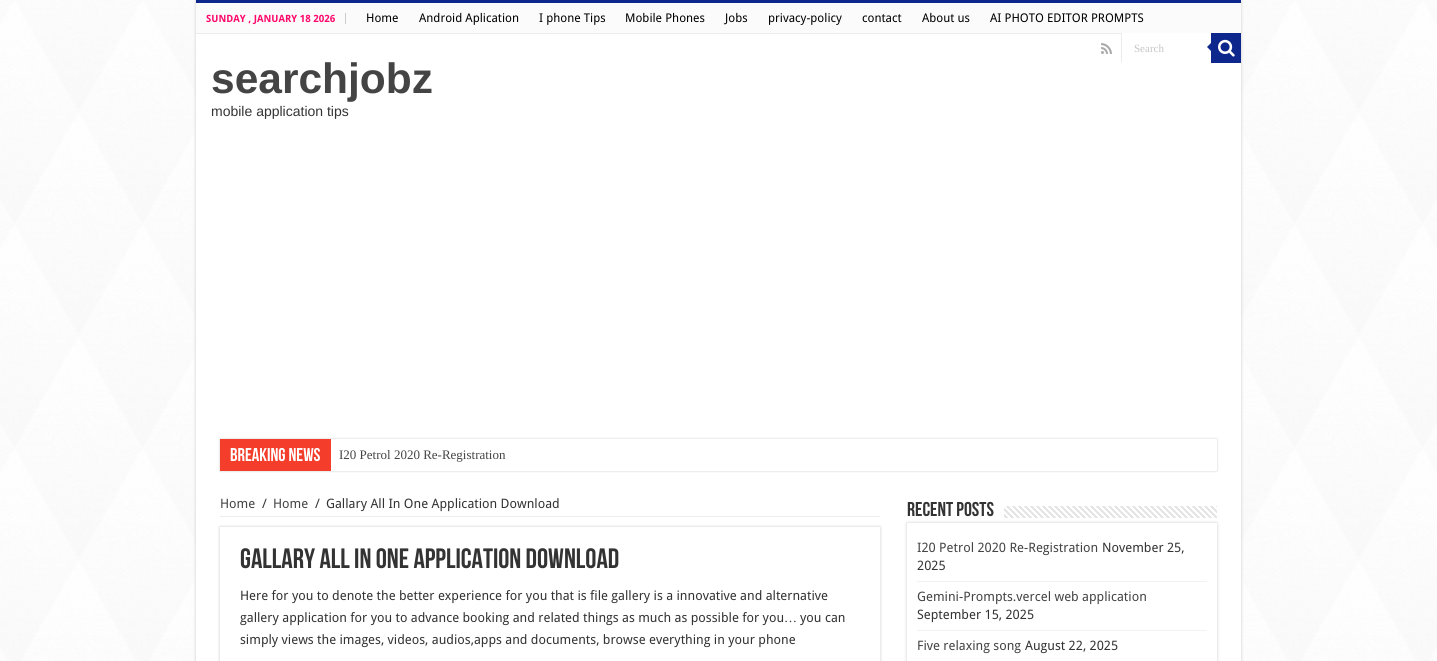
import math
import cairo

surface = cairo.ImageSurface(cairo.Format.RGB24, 1437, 661)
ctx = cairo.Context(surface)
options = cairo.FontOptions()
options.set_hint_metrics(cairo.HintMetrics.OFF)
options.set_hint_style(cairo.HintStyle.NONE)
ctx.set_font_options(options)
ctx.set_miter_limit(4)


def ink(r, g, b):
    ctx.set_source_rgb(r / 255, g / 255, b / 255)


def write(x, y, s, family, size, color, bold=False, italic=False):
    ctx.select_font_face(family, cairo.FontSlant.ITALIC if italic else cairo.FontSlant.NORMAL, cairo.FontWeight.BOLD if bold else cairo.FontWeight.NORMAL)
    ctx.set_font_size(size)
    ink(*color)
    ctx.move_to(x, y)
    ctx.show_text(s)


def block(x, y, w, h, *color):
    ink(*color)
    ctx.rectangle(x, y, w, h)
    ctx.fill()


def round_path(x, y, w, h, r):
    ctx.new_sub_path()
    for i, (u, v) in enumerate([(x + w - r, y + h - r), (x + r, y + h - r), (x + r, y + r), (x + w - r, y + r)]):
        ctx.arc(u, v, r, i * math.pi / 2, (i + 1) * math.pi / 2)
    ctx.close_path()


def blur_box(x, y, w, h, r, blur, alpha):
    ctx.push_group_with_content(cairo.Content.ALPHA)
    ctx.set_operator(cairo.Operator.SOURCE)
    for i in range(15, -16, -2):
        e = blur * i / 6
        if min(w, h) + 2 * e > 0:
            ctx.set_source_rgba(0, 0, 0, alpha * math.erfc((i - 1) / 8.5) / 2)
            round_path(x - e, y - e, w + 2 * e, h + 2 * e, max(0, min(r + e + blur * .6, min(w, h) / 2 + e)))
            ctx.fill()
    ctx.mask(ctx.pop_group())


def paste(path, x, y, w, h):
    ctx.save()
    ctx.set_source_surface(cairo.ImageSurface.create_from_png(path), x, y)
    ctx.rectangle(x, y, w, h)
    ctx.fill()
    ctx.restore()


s1 = dict(family="Droid Sans", size=10, color=(255, 8, 107), bold=True)
s2 = dict(family="Droid Sans", size=12, color=(0, 0, 0))
s3 = dict(family="Liberation Serif", size=11, color=(197, 197, 197))
s4 = dict(family="Liberation Sans", size=42.5, color=(68, 68, 68), bold=True)
s5 = dict(family="Liberation Sans", size=14, color=(51, 51, 51))
s6 = dict(family="Bebas Neue", size=18.5, color=(255, 255, 255), bold=True)
s7 = dict(family="Liberation Serif", size=13, color=(68, 68, 68))
s8 = dict(family="Droid Sans", size=13, color=(68, 68, 68))
s9 = dict(family="Droid Sans", size=13, color=(51, 51, 51))
s10 = dict(family="Bebas Neue", size=28, color=(51, 51, 51), bold=True)
s11 = dict(family="Liberation Serif", size=13, color=(51, 51, 51))
s12 = dict(family="Bebas Neue", size=20, color=(51, 51, 51), bold=True)

ink(255, 255, 255)
ctx.paint()
paste("pic1.png", 0, 0, 1437, 661)
ink(202, 202, 202)
blur_box(196, 0, 1045, 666, 0, 1.5, 1)
block(196, 34, 1045, 627, 255, 255, 255)
block(196, 0, 1045, 3, 14, 39, 140)
block(196, 3, 1045, 30, 251, 251, 251)
block(196, 33, 925, 1, 236, 236, 236)
block(345, 13, 1, 11, 204, 204, 204)
write(206, 22, "SUNDAY , JANUARY 18 2026", **s1)
write(366, 22, "Home", **s2)
write(419, 22, "Android Aplication", **s2)
write(539, 22, "I phone Tips", **s2)
write(625, 22, "Mobile Phones", **s2)
write(725, 22, "Jobs", **s2)
write(768, 22, "privacy-policy", **s2)
write(862, 22, "contact", **s2)
write(922, 22, "About us", **s2)
write(990, 22, "AI PHOTO EDITOR PROMPTS", **s2)
paste("pic2.png", 1101, 43, 11, 11)
block(1122, 33, 89, 1, 255, 255, 255)
block(1121, 33, 1, 29, 236, 236, 236)
write(1134, 52, "Search", **s3)
block(1211, 33, 30, 30, 14, 39, 140)
paste("pic3.png", 1218, 39, 17, 18)
ctx.new_path()
ctx.move_to(1211, 43)
ctx.line_to(1211, 51)
ctx.line_to(1207, 47)
ctx.close_path()
ctx.fill()
write(211, 93, "searchjobz", **s4)
write(211, 116, "mobile application tips", **s5)
ctx.save()
ctx.set_fill_rule(cairo.FillRule.EVEN_ODD)
ctx.new_path()
ctx.move_to(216, 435)
ctx.line_to(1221, 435)
ctx.line_to(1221, 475)
ctx.line_to(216, 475)
ctx.close_path()
ctx.move_to(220, 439)
ctx.line_to(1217, 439)
ctx.line_to(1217, 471)
ctx.line_to(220, 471)
ctx.close_path()
ctx.clip()
ink(202, 202, 202)
blur_box(220, 439, 997, 32, 0, 1, 1)
ctx.restore()
block(220, 439, 111, 32, 244, 61, 42)
write(230, 461, "Breaking News", **s6)
write(339, 459, "I20 Petrol 2020 Re-Registration", **s7)
block(220, 516, 660, 1, 238, 238, 238)
write(220, 508, "Home", **s8)
write(262, 508, "/", **s9)
write(273, 508, "Home", **s8)
write(315, 508, "/", **s9)
write(326, 508, "Gallary All In One Application Download", **s9)
ctx.save()
ctx.set_fill_rule(cairo.FillRule.EVEN_ODD)
ctx.new_path()
ctx.move_to(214, 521)
ctx.line_to(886, 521)
ctx.line_to(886, 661)
ctx.line_to(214, 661)
ctx.close_path()
ctx.move_to(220, 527)
ctx.line_to(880, 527)
ctx.line_to(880, 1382)
ctx.line_to(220, 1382)
ctx.close_path()
ctx.clip()
ink(202, 202, 202)
blur_box(220, 527, 660, 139, 0, 1.5, 1)
ctx.restore()
write(240, 568, "Gallary All In One Application Download", **s10)
write(240, 600, "Here for you to denote the better experience for you that is file gallery is a innovative and alternative", **s9)
write(240, 622, "gallery application for you to advance booking and related things as much as possible for you", **s9)
write(784, 622, "…", **s11)
write(800, 622, "you can", **s9)
write(240, 644, "simply views the images, videos, audios,apps and documents, browse everything in your phone", **s9)
write(907, 516, "Recent Posts", **s12)
ctx.save()
ctx.set_fill_rule(cairo.FillRule.EVEN_ODD)
ctx.new_path()
ctx.move_to(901, 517)
ctx.line_to(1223, 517)
ctx.line_to(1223, 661)
ctx.line_to(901, 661)
ctx.close_path()
ctx.move_to(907, 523)
ctx.line_to(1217, 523)
ctx.line_to(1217, 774)
ctx.line_to(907, 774)
ctx.close_path()
ctx.clip()
ink(202, 202, 202)
blur_box(907, 523, 310, 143, 0, 1.5, 1)
ctx.restore()
paste("pic4.png", 1004, 506, 213, 12)
block(917, 581, 290, 1, 242, 242, 242)
write(917, 552, "I20 Petrol 2020 Re-Registration", **s8)
write(1102, 552, "November 25,", **s9)
write(917, 570, "2025", **s9)
block(917, 630, 290, 1, 242, 242, 242)
write(917, 601, "Gemini-Prompts.vercel web application", **s8)
write(917, 619, "September 15, 2025", **s9)
write(917, 650, "Five relaxing song", **s8)
write(1025, 650, "August 22, 2025", **s9)
surface.write_to_png("screenshot.png")
